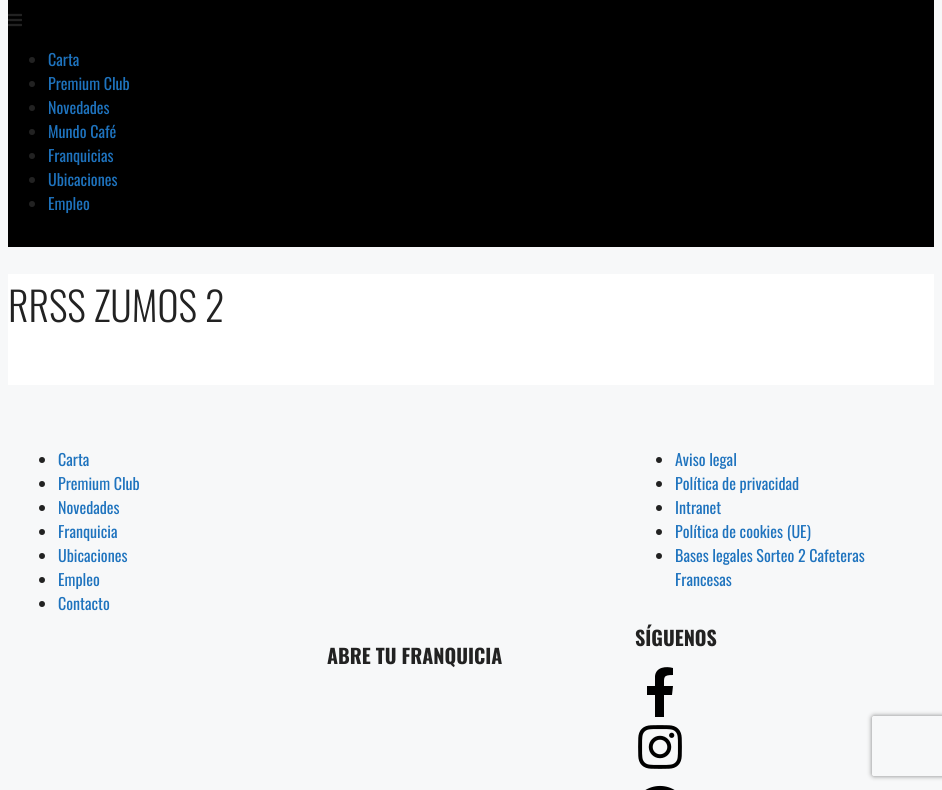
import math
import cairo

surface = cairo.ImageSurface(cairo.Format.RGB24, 942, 790)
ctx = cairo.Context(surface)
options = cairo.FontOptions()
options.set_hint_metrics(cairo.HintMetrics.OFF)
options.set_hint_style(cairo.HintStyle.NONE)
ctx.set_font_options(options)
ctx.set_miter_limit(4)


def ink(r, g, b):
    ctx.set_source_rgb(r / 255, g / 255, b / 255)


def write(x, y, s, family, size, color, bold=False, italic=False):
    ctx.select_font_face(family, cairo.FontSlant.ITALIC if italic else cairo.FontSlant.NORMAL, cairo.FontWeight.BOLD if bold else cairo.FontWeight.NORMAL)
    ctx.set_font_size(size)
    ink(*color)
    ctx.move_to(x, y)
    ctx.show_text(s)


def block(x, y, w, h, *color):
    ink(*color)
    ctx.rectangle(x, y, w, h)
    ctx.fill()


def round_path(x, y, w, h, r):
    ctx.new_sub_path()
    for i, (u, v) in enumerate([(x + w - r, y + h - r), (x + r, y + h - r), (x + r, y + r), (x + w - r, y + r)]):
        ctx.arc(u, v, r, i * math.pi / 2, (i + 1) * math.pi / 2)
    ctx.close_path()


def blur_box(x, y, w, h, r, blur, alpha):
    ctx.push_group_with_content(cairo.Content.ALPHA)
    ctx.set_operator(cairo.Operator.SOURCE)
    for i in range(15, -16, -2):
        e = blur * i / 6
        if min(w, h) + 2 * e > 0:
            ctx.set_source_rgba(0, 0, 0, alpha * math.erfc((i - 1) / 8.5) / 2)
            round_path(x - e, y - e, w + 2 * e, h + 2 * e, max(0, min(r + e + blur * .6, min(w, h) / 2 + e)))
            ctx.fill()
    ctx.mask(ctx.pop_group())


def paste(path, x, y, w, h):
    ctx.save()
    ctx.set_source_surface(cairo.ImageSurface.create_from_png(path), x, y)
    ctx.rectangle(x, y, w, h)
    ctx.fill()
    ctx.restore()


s1 = dict(family="Oswald", size=16, color=(30, 115, 190))
s2 = dict(family="Oswald Light", size=40, color=(34, 34, 34))
s3 = dict(family="Oswald", size=20, color=(34, 34, 34), bold=True)

ink(247, 248, 249)
ctx.paint()
block(8, 0, 926, 247, 0, 0, 0)
paste("pic1.png", 8, 13, 14, 14)
ink(34, 34, 34)
ctx.arc(32, 60, 3, 0, 2 * math.pi)
ctx.fill()
write(48, 66, "Carta", **s1)
ink(34, 34, 34)
ctx.new_path()
ctx.arc(32, 84, 3, 0, 2 * math.pi)
ctx.fill()
write(48, 90, "Premium Club", **s1)
ink(34, 34, 34)
ctx.new_path()
ctx.arc(32, 108, 3, 0, 2 * math.pi)
ctx.fill()
write(48, 114, "Novedades", **s1)
ink(34, 34, 34)
ctx.new_path()
ctx.arc(32, 132, 3, 0, 2 * math.pi)
ctx.fill()
write(48, 138, "Mundo Café", **s1)
ink(34, 34, 34)
ctx.new_path()
ctx.arc(32, 156, 3, 0, 2 * math.pi)
ctx.fill()
write(48, 162, "Franquicias", **s1)
ink(34, 34, 34)
ctx.new_path()
ctx.arc(32, 180, 3, 0, 2 * math.pi)
ctx.fill()
write(48, 186, "Ubicaciones", **s1)
ink(34, 34, 34)
ctx.new_path()
ctx.arc(32, 204, 3, 0, 2 * math.pi)
ctx.fill()
write(48, 210, "Empleo", **s1)
block(8, 274, 926, 111, 255, 255, 255)
write(8, 322, "RRSS ZUMOS 2", **s2)
ctx.new_path()
ctx.arc(42, 460, 3, 0, 2 * math.pi)
ctx.fill()
write(58, 466, "Carta", **s1)
ink(34, 34, 34)
ctx.new_path()
ctx.arc(42, 484, 3, 0, 2 * math.pi)
ctx.fill()
write(58, 490, "Premium Club", **s1)
ink(34, 34, 34)
ctx.new_path()
ctx.arc(42, 508, 3, 0, 2 * math.pi)
ctx.fill()
write(58, 514, "Novedades", **s1)
ink(34, 34, 34)
ctx.new_path()
ctx.arc(42, 532, 3, 0, 2 * math.pi)
ctx.fill()
write(58, 538, "Franquicia", **s1)
ink(34, 34, 34)
ctx.new_path()
ctx.arc(42, 556, 3, 0, 2 * math.pi)
ctx.fill()
write(58, 562, "Ubicaciones", **s1)
ink(34, 34, 34)
ctx.new_path()
ctx.arc(42, 580, 3, 0, 2 * math.pi)
ctx.fill()
write(58, 586, "Empleo", **s1)
ink(34, 34, 34)
ctx.new_path()
ctx.arc(42, 604, 3, 0, 2 * math.pi)
ctx.fill()
write(58, 610, "Contacto", **s1)
ink(34, 34, 34)
ctx.new_path()
ctx.arc(659, 460, 3, 0, 2 * math.pi)
ctx.fill()
write(675, 466, "Aviso legal", **s1)
ink(34, 34, 34)
ctx.new_path()
ctx.arc(659, 484, 3, 0, 2 * math.pi)
ctx.fill()
write(675, 490, "Política de privacidad", **s1)
ink(34, 34, 34)
ctx.new_path()
ctx.arc(659, 508, 3, 0, 2 * math.pi)
ctx.fill()
write(675, 514, "Intranet", **s1)
ink(34, 34, 34)
ctx.new_path()
ctx.arc(659, 532, 3, 0, 2 * math.pi)
ctx.fill()
write(675, 538, "Política de cookies (UE)", **s1)
ink(34, 34, 34)
ctx.new_path()
ctx.arc(659, 556, 3, 0, 2 * math.pi)
ctx.fill()
write(675, 562, "Bases legales Sorteo 2 Cafeteras", **s1)
write(675, 586, "Francesas", **s1)
write(635, 646, "SÍGUENOS", **s3)
ink(0, 0, 0)
ctx.new_path()
ctx.move_to(672, 695)
ctx.line_to(673, 686)
ctx.line_to(664, 686)
ctx.curve_to(664, 677, 663, 675, 673, 675)
ctx.line_to(673, 668)
ctx.curve_to(666, 666, 656, 667, 655, 676)
ctx.line_to(655, 686)
ctx.line_to(647, 686)
ctx.line_to(647, 695)
ctx.line_to(655, 695)
ctx.line_to(655, 717)
ctx.line_to(664, 717)
ctx.line_to(664, 695)
ctx.close_path()
ctx.fill()
paste("pic2.png", 638, 725, 44, 44)
paste("pic3.png", 645, 785, 30, 5)
write(327, 664, "ABRE TU FRANQUICIA", **s3)
ctx.save()
ctx.set_fill_rule(cairo.FillRule.EVEN_ODD)
ctx.new_path()
ctx.move_to(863, 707)
ctx.line_to(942, 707)
ctx.line_to(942, 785)
ctx.line_to(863, 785)
ctx.close_path()
ctx.move_to(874, 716)
ctx.line_to(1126, 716)
ctx.curve_to(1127, 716, 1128, 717, 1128, 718)
ctx.line_to(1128, 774)
ctx.curve_to(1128, 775, 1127, 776, 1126, 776)
ctx.line_to(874, 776)
ctx.curve_to(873, 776, 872, 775, 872, 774)
ctx.line_to(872, 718)
ctx.curve_to(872, 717, 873, 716, 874, 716)
ctx.close_path()
ctx.clip()
ink(128, 128, 128)
blur_box(872, 716, 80, 60, 2, 2.5, 1)
ctx.restore()
surface.write_to_png("screenshot.png")
